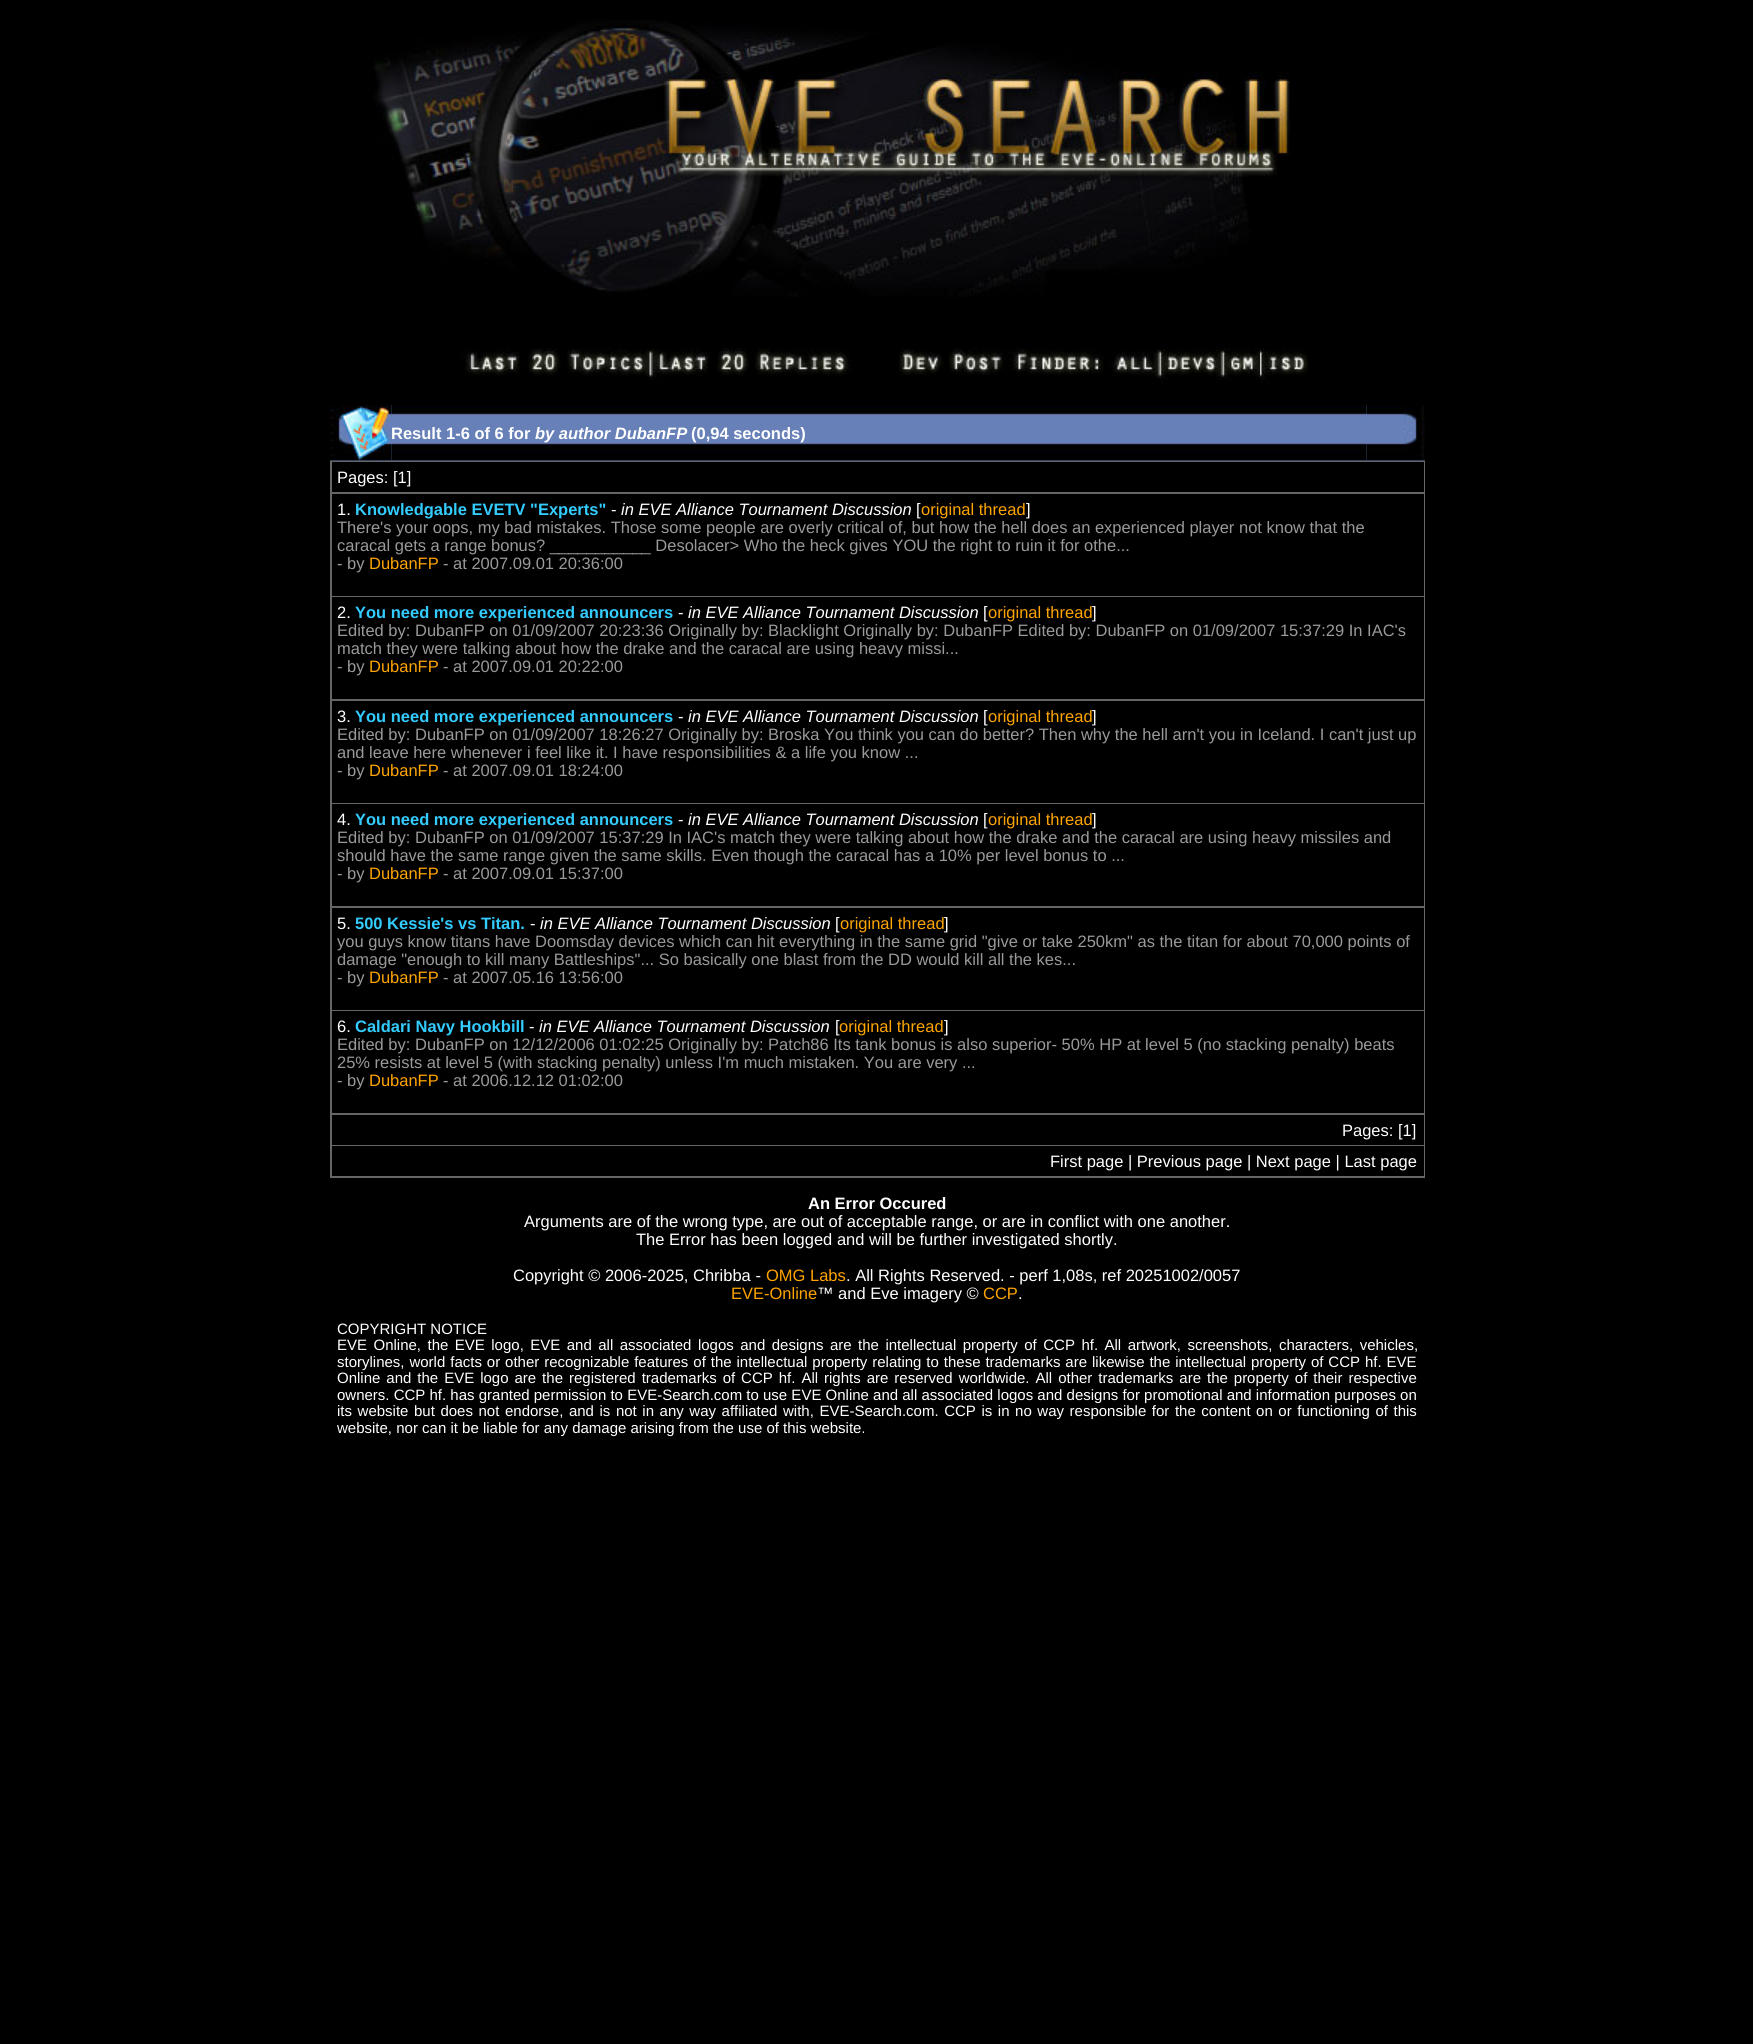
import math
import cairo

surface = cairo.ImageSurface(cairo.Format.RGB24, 1753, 2044)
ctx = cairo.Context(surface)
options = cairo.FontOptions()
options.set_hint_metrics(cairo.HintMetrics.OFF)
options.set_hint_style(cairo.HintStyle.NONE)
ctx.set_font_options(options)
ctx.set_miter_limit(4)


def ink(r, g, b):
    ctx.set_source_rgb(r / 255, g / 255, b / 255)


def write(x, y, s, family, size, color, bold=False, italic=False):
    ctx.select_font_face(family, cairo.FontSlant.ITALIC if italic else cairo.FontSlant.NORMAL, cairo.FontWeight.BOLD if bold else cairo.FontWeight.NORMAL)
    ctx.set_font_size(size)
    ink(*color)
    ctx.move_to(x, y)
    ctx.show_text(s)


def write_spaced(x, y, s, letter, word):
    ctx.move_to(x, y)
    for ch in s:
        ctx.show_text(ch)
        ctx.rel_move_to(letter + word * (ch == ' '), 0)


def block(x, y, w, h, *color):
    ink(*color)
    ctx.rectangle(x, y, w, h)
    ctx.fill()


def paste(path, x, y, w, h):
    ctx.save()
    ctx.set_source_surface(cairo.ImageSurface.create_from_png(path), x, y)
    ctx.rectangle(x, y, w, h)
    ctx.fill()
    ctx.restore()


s1 = dict(family="Liberation Sans", size=16.5, color=(255, 255, 255), bold=True)
s2 = dict(family="Liberation Sans", size=16.5, color=(255, 255, 255), bold=True, italic=True)
s3 = dict(family="Liberation Sans", size=16.5, color=(255, 255, 255))
s4 = dict(family="Liberation Sans", size=16.5, color=(51, 204, 255), bold=True)
s5 = dict(family="Liberation Sans", size=16.5, color=(255, 255, 255), italic=True)
s6 = dict(family="Liberation Sans", size=16.5, color=(255, 165, 0))
s7 = dict(family="Liberation Sans", size=16.5, color=(155, 154, 154))
s8 = dict(family="Liberation Sans", size=15, color=(255, 255, 255))

ink(0, 0, 0)
ctx.paint()
paste("pic1.png", 373, 20, 917, 277)
paste("pic2.png", 461, 348, 189, 29)
paste("pic3.png", 649, 348, 203, 34)
paste("pic4.png", 899, 348, 205, 27)
paste("pic5.png", 1107, 349, 53, 30)
paste("pic6.png", 1159, 349, 64, 33)
paste("pic7.png", 1222, 348, 38, 34)
paste("pic8.png", 1260, 348, 48, 36)
block(330, 405, 1037, 56, 103, 128, 184)
paste("pic11.png", 391, 405, 976, 56)
paste("pic9.png", 330, 405, 62, 56)
block(1367, 460, 58, 1, 103, 128, 184)
paste("pic10.png", 1366, 405, 59, 56)
write(391, 439, "Result 1-6 of 6 for", **s1)
write(535, 439, "by author DubanFP", **s2)
write(691, 439, "(0,94 seconds)", **s1)
block(330, 461, 1095, 717, 102, 102, 102)
block(332, 462, 1092, 30, 0, 0, 0)
write(337, 483, "Pages: [1]", **s3)
block(332, 494, 1092, 102, 0, 0, 0)
write(337, 515, "1.", **s3)
write(355, 515, "Knowledgable EVETV \"Experts\"", **s4)
write(611, 515, "-", **s3)
write(621, 515, "in EVE Alliance Tournament Discussion", **s5)
write(916, 515, "[", **s3)
write(921, 515, "original thread", **s6)
write(1026, 515, "]", **s3)
write(337, 533, "There's your oops, my bad mistakes. Those some people are overly critical of, but how the hell does an experienced player not know that the", **s7)
write(337, 551, "caracal gets a range bonus? ___________ Desolacer> Who the heck gives YOU the right to ruin it for othe...", **s7)
write(337, 569, "- by", **s7)
write(369, 569, "DubanFP", **s6)
write(443, 569, "- at 2007.09.01 20:36:00", **s7)
block(332, 597, 1092, 102, 0, 0, 0)
write(337, 618, "2.", **s3)
write(355, 618, "You need more experienced announcers", **s4)
write(678, 618, "-", **s3)
write(688, 618, "in EVE Alliance Tournament Discussion", **s5)
write(983, 618, "[", **s3)
write(988, 618, "original thread", **s6)
write(1092, 618, "]", **s3)
write(337, 636, "Edited by: DubanFP on 01/09/2007 20:23:36 Originally by: Blacklight Originally by: DubanFP Edited by: DubanFP on 01/09/2007 15:37:29 In IAC's", **s7)
write(337, 654, "match they were talking about how the drake and the caracal are using heavy missi...", **s7)
write(337, 672, "- by", **s7)
write(369, 672, "DubanFP", **s6)
write(443, 672, "- at 2007.09.01 20:22:00", **s7)
block(332, 701, 1092, 102, 0, 0, 0)
write(337, 722, "3.", **s3)
write(355, 722, "You need more experienced announcers", **s4)
write(678, 722, "-", **s3)
write(688, 722, "in EVE Alliance Tournament Discussion", **s5)
write(983, 722, "[", **s3)
write(988, 722, "original thread", **s6)
write(1092, 722, "]", **s3)
write(337, 740, "Edited by: DubanFP on 01/09/2007 18:26:27 Originally by: Broska You think you can do better? Then why the hell arn't you in Iceland. I can't just up", **s7)
write(337, 758, "and leave here whenever i feel like it. I have responsibilities & a life you know ...", **s7)
write(337, 776, "- by", **s7)
write(369, 776, "DubanFP", **s6)
write(443, 776, "- at 2007.09.01 18:24:00", **s7)
block(332, 804, 1092, 102, 0, 0, 0)
write(337, 825, "4.", **s3)
write(355, 825, "You need more experienced announcers", **s4)
write(678, 825, "-", **s3)
write(688, 825, "in EVE Alliance Tournament Discussion", **s5)
write(983, 825, "[", **s3)
write(988, 825, "original thread", **s6)
write(1092, 825, "]", **s3)
write(337, 843, "Edited by: DubanFP on 01/09/2007 15:37:29 In IAC's match they were talking about how the drake and the caracal are using heavy missiles and", **s7)
write(337, 861, "should have the same range given the same skills. Even though the caracal has a 10% per level bonus to ...", **s7)
write(337, 879, "- by", **s7)
write(369, 879, "DubanFP", **s6)
write(443, 879, "- at 2007.09.01 15:37:00", **s7)
block(332, 908, 1092, 102, 0, 0, 0)
write(337, 929, "5.", **s3)
write(355, 929, "500 Kessie's vs Titan.", **s4)
write(530, 929, "-", **s3)
write(540, 929, "in EVE Alliance Tournament Discussion", **s5)
write(835, 929, "[", **s3)
write(840, 929, "original thread", **s6)
write(944, 929, "]", **s3)
write(337, 947, "you guys know titans have Doomsday devices which can hit everything in the same grid \"give or take 250km\" as the titan for about 70,000 points of", **s7)
write(337, 965, "damage \"enough to kill many Battleships\"... So basically one blast from the DD would kill all the kes...", **s7)
write(337, 983, "- by", **s7)
write(369, 983, "DubanFP", **s6)
write(443, 983, "- at 2007.05.16 13:56:00", **s7)
block(332, 1011, 1092, 102, 0, 0, 0)
write(337, 1032, "6.", **s3)
write(355, 1032, "Caldari Navy Hookbill", **s4)
write(529, 1032, "-", **s3)
write(539, 1032, "in EVE Alliance Tournament Discussion", **s5)
write(835, 1032, "[", **s3)
write(839, 1032, "original thread", **s6)
write(944, 1032, "]", **s3)
write(337, 1050, "Edited by: DubanFP on 12/12/2006 01:02:25 Originally by: Patch86 Its tank bonus is also superior- 50% HP at level 5 (no stacking penalty) beats", **s7)
write(337, 1068, "25% resists at level 5 (with stacking penalty) unless I'm much mistaken. You are very ...", **s7)
write(337, 1086, "- by", **s7)
write(369, 1086, "DubanFP", **s6)
write(443, 1086, "- at 2006.12.12 01:02:00", **s7)
block(332, 1115, 1092, 30, 0, 0, 0)
write(1342, 1136, "Pages: [1]", **s3)
block(332, 1146, 1092, 30, 0, 0, 0)
write(1050, 1167, "First page | Previous page | Next page | Last page", **s3)
write(808, 1209, "An Error Occured", **s1)
write(524, 1227, "Arguments are of the wrong type, are out of acceptable range, or are in conflict with one another.", **s3)
write(636, 1245, "The Error has been logged and will be further investigated shortly.", **s3)
write(513, 1281, "Copyright © 2006-2025, Chribba -", **s3)
write(766, 1281, "OMG Labs", **s6)
write(846, 1281, ". All Rights Reserved. - perf 1,08s, ref 20251002/0057", **s3)
write(731, 1299, "EVE-Online", **s6)
write(817, 1299, "™ and Eve imagery ©", **s3)
write(983, 1299, "CCP", **s6)
write(1018, 1299, ".", **s3)
write(337, 1334, "COPYRIGHT NOTICE", **s8)
write_spaced(337, 1350, "EVE Online, the EVE logo, EVE and all associated logos and designs are the intellectual property of CCP hf. All artwork, screenshots, characters, vehicles,", 0, 2.3)
write_spaced(337, 1367, "storylines, world facts or other recognizable features of the intellectual property relating to these trademarks are likewise the intellectual property of CCP hf. EVE", 0, 0.75)
write_spaced(337, 1383, "Online and the EVE logo are the registered trademarks of CCP hf. All rights are reserved worldwide. All other trademarks are the property of their respective", 0, 1.8)
write(337, 1400, "owners. CCP hf. has granted permission to EVE-Search.com to use EVE Online and all associated logos and designs for promotional and information purposes on", **s8)
write_spaced(337, 1416, "its website but does not endorse, and is not in any way affiliated with, EVE-Search.com. CCP is in no way responsible for the content on or functioning of this", 0, 1.4)
write(337, 1433, "website, nor can it be liable for any damage arising from the use of this website.", **s8)
surface.write_to_png("screenshot.png")
